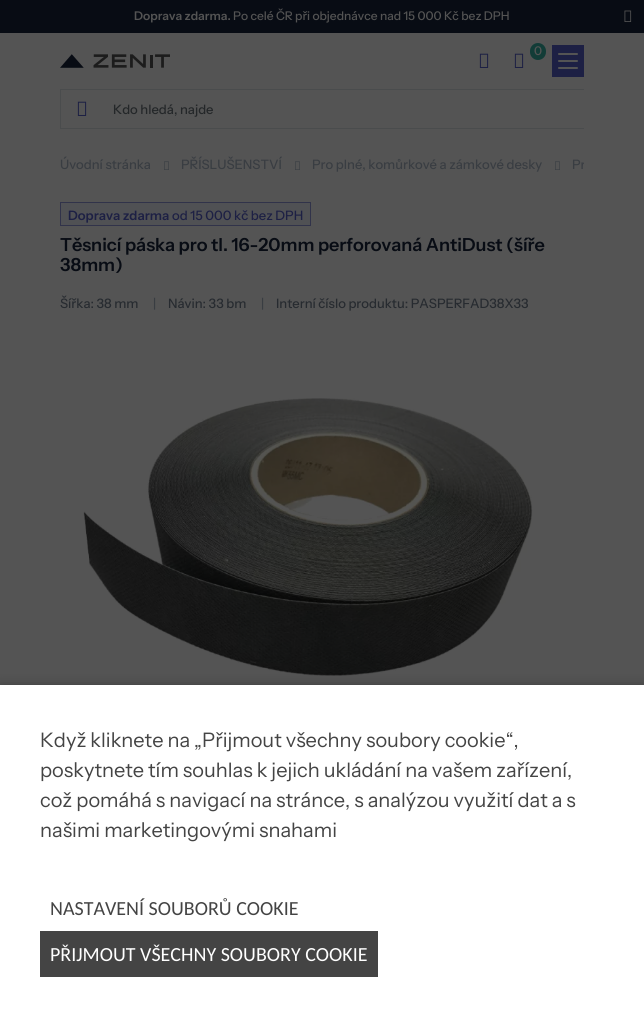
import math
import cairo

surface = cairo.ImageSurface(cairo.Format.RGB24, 644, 1017)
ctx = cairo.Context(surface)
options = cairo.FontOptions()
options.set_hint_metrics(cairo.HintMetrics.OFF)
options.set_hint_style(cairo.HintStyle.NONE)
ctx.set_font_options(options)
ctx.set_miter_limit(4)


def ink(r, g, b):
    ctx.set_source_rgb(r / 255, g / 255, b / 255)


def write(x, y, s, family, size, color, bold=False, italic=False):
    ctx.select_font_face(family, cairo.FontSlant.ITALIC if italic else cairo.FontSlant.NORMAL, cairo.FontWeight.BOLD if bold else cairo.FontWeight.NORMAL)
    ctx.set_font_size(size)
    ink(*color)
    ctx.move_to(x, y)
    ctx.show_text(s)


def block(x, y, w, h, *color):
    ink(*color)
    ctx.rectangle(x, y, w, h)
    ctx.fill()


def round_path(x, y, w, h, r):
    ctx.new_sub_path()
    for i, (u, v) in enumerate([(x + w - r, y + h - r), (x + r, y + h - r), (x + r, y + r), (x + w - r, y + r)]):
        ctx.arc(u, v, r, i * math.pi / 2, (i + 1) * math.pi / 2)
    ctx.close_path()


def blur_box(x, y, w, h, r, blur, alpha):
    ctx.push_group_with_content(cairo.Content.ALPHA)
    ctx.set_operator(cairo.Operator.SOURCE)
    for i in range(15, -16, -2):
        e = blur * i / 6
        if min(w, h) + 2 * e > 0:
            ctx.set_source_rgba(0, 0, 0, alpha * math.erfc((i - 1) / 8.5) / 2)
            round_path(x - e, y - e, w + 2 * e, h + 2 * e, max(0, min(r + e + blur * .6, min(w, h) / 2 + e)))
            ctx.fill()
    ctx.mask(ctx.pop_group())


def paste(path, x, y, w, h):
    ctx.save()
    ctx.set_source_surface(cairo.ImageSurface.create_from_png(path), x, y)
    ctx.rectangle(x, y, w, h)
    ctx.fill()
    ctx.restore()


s1 = dict(family="Instrument Sans SemiBold", size=12, color=(84, 84, 84))
s2 = dict(family="Instrument Sans Medium", size=12, color=(84, 84, 84))
s3 = dict(family="Instrument Sans Medium", size=13, color=(36, 39, 41))
s4 = dict(family="Instrument Sans Medium", size=13, color=(57, 61, 66))
s5 = dict(family="Instrument Sans SemiBold", size=13, color=(29, 32, 68))
s6 = dict(family="Instrument Sans Medium", size=13, color=(29, 32, 68))
s7 = dict(family="Instrument Sans SemiBold", size=18, color=(8, 12, 20))
s8 = dict(family="Instrument Sans Medium", size=13, color=(39, 43, 48))
s9 = dict(family="Instrument Sans", size=20, color=(68, 68, 68))
s10 = dict(family="Carlito", size=20, color=(68, 68, 68))
s11 = dict(family="Carlito", size=20, color=(255, 255, 255))

ink(84, 84, 84)
ctx.paint()
block(0, 0, 644, 33, 8, 12, 20)
write(134, 20, "Doprava zdarma.", **s1)
write(233, 20, "Po celé ČR při objednávce nad 15 000 Kč bez DPH", **s2)
paste("pic1.png", 624, 10, 8, 12)
paste("pic2.png", 60, 54, 110, 14)
paste("pic3.png", 479, 53, 10, 15)
block(552, 45, 32, 32, 29, 32, 68)
ink(84, 84, 84)
round_path(558, 53, 20, 2, 1)
ctx.fill()
round_path(558, 60, 20, 2, 1)
ctx.fill()
round_path(558, 67, 20, 2, 1)
ctx.fill()
ink(18, 60, 55)
round_path(530, 43, 16, 17, 8)
ctx.fill()
write(534, 55, "0", **s2)
paste("pic3.png", 514, 53, 10, 15)
paste("pic3.png", 77, 101, 10, 15)
block(60, 89, 524, 1, 74, 76, 77)
block(60, 128, 524, 1, 74, 76, 77)
block(60, 89, 1, 40, 74, 76, 77)
write(113, 114, "Kdo hledá, najde", **s3)
write(60, 169, "Úvodní stránka", **s4)
paste("pic4.png", 164, 161, 5, 9)
write(181, 169, "PŘÍSLUŠENSTVÍ", **s4)
paste("pic4.png", 295, 161, 5, 9)
write(312, 169, "Pro plné, komůrkové a zámkové desky", **s4)
paste("pic4.png", 555, 161, 5, 9)
ctx.save()
ctx.rectangle(60, 153, 524, 23)
ctx.clip()
write(572, 169, "Pr", **s4)
ctx.restore()
ink(80, 81, 84)
ctx.rectangle(60.5, 202.5, 250, 23)
ctx.fill_preserve()
ink(49, 51, 74)
ctx.set_line_width(1)
ctx.stroke()
write(68, 220, "Doprava zdarma", **s5)
write(172, 220, "od 15 000 kč bez DPH", **s6)
write(60, 251, "Těsnicí páska pro tl. 16-20mm perforovaná AntiDust (šíře", **s7)
write(60, 271, "38mm)", **s7)
write(60, 308, "Šířka: 38 mm", **s8)
write(153, 308, "|", **s4)
write(168, 308, "Návin: 33 bm", **s8)
write(261, 308, "|", **s4)
write(276, 308, "Interní číslo produktu: PASPERFAD38X33", **s8)
paste("pic5.png", 83, 398, 450, 278)
ink(0, 0, 0)
blur_box(0, 685, 644, 332, 0, 6, 0.25)
block(0, 685, 644, 332, 255, 255, 255)
write(40, 747, "Když kliknete na „Přijmout všechny soubory cookie“,", **s9)
write(40, 777, "poskytnete tím souhlas k jejich ukládání na vašem zařízení,", **s9)
write(40, 807, "což pomáhá s navigací na stránce, s analýzou využití dat a s", **s9)
write(40, 837, "našimi marketingovými snahami", **s9)
write(50, 915, "NASTAVENÍ SOUBORŮ COOKIE", **s10)
block(40, 931, 338, 46, 68, 68, 68)
write(50, 961, "PŘIJMOUT VŠECHNY SOUBORY COOKIE", **s11)
surface.write_to_png("screenshot.png")
